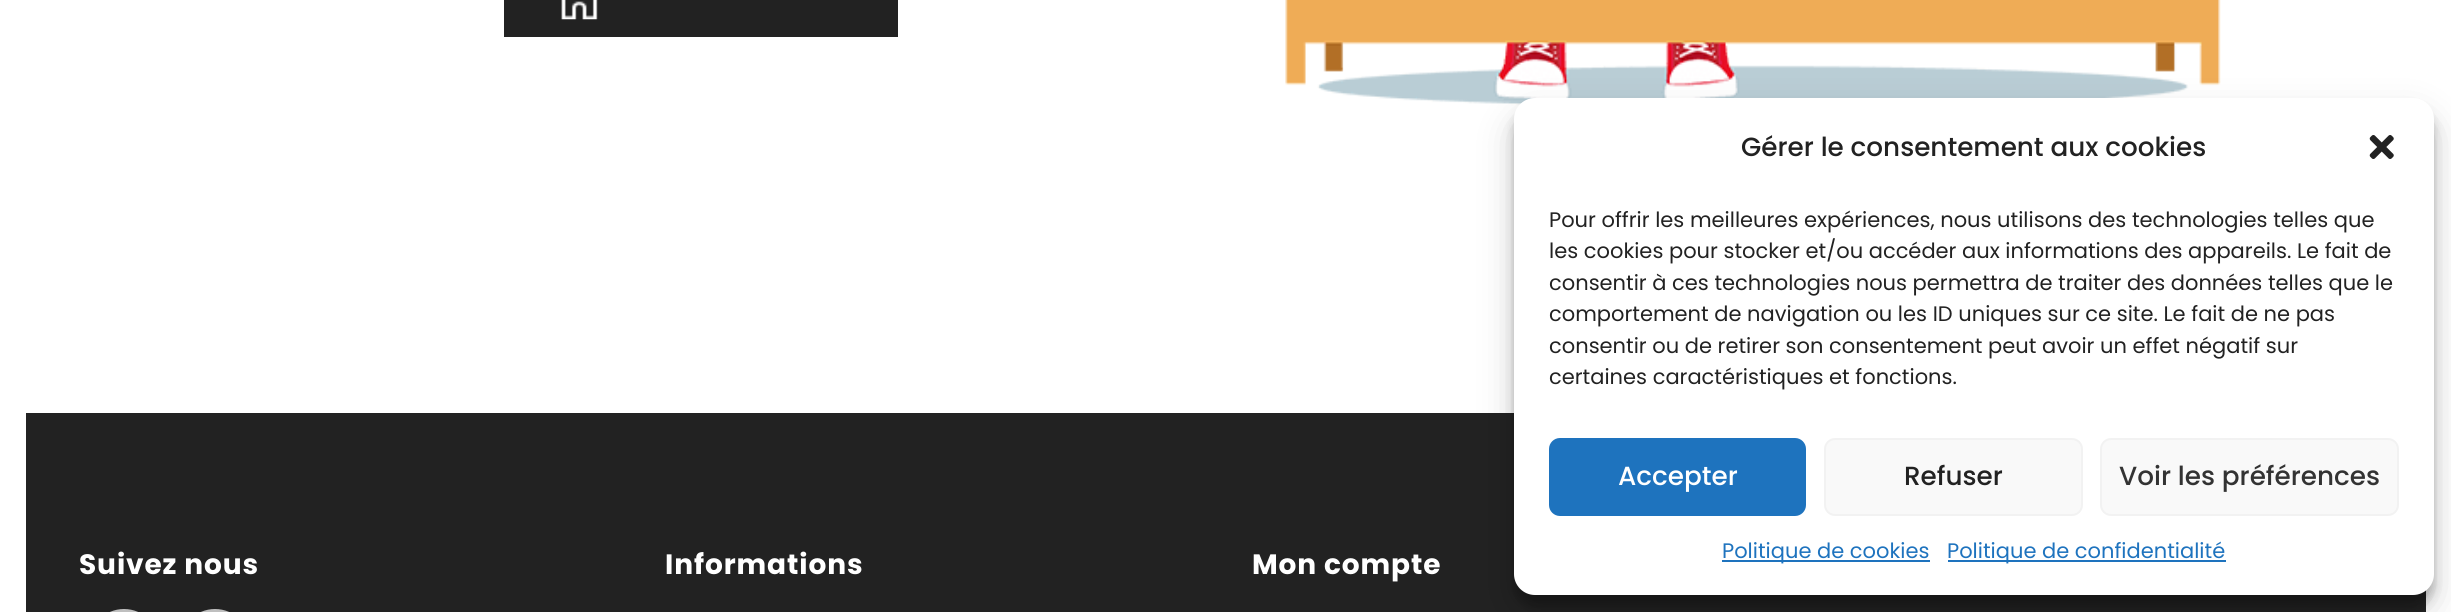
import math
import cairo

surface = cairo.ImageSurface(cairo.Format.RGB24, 2451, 612)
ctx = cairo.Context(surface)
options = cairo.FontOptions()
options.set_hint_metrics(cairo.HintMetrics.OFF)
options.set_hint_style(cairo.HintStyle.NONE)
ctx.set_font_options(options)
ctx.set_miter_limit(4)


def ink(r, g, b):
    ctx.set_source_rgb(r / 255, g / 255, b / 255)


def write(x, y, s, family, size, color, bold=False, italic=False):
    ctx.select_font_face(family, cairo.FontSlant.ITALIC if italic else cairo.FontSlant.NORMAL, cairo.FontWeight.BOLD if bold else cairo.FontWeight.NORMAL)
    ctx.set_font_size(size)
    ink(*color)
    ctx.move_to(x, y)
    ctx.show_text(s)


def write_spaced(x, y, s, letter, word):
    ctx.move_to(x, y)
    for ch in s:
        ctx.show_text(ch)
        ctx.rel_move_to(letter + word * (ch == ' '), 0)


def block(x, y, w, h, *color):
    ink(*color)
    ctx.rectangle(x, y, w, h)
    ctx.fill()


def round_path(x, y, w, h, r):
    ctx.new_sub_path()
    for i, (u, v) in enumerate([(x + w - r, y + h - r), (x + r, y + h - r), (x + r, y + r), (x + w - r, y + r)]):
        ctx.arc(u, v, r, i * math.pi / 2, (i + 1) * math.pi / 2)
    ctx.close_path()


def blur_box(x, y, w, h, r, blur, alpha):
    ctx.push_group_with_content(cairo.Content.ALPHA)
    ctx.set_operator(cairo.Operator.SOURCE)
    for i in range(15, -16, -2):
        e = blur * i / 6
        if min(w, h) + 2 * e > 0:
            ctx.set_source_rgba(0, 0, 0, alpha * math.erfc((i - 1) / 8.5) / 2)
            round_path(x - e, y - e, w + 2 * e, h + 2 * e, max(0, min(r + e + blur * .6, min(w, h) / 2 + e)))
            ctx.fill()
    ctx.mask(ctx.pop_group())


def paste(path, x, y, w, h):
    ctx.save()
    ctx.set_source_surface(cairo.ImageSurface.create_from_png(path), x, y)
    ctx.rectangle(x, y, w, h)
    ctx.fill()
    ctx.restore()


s1 = dict(family="Poppins Medium", size=26.25, color=(34, 34, 34))
s2 = dict(family="Poppins", size=21, color=(34, 34, 34))
s3 = dict(family="Poppins Medium", size=26.25, color=(255, 255, 255))
s4 = dict(family="Poppins Medium", size=26.25, color=(51, 51, 51))
s5 = dict(family="Poppins", size=21, color=(30, 115, 190))

ink(255, 255, 255)
ctx.paint()
block(504, 0, 394, 37, 34, 34, 34)
paste("pic1.png", 561, 0, 37, 20)
paste("pic2.png", 1285, 0, 936, 106)
block(26, 413, 2400, 199, 34, 34, 34)
ctx.select_font_face("Poppins", cairo.FontSlant.NORMAL, cairo.FontWeight.BOLD)
ctx.set_font_size(28)
ink(255, 255, 255)
write_spaced(79, 574, "Suivez nous", 0.9, 0)
ink(191, 191, 191)
round_path(89, 609, 70, 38, 35)
ctx.fill()
round_path(180, 609, 70, 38, 35)
ctx.fill()
ink(255, 255, 255)
write_spaced(665, 574, "Informations", 0.9, 0)
write_spaced(1252, 574, "Mon compte", 0.9, 0)
ink(0, 0, 0)
blur_box(1514, 109, 920, 497, 21, 5, 0.23)
blur_box(1514, 116, 920, 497, 21, 17.5, 0.19)
ink(255, 255, 255)
round_path(1514, 98, 920, 497, 21)
ctx.fill()
write(1741, 156, "Gérer le consentement aux cookies", **s1)
paste("pic3.png", 2369, 135, 25, 24)
write(1549, 227, "Pour offrir les meilleures expériences, nous utilisons des technologies telles que", **s2)
write(1549, 258, "les cookies pour stocker et/ou accéder aux informations des appareils. Le fait de", **s2)
write(1549, 290, "consentir à ces technologies nous permettra de traiter des données telles que le", **s2)
write(1549, 321, "comportement de navigation ou les ID uniques sur ce site. Le fait de ne pas", **s2)
write(1549, 353, "consentir ou de retirer son consentement peut avoir un effet négatif sur", **s2)
write(1549, 384, "certaines caractéristiques et fonctions.", **s2)
ink(30, 115, 190)
round_path(1550, 439, 255, 76, 10)
ctx.fill_preserve()
ctx.stroke()
write(1618, 485, "Accepter", **s3)
ink(249, 249, 249)
round_path(1825, 439, 257, 76, 10)
ctx.fill_preserve()
ink(242, 242, 242)
ctx.stroke()
write(1904, 485, "Refuser", **s1)
ink(249, 249, 249)
round_path(2101, 439, 297, 76, 10)
ctx.fill_preserve()
ink(242, 242, 242)
ctx.stroke()
write(2119, 485, "Voir les préférences", **s4)
block(1722, 560, 208, 2, 30, 115, 190)
write(1722, 558, "Politique de cookies", **s5)
block(1948, 560, 278, 2, 30, 115, 190)
write(1947, 558, "Politique de confidentialité", **s5)
surface.write_to_png("screenshot.png")
